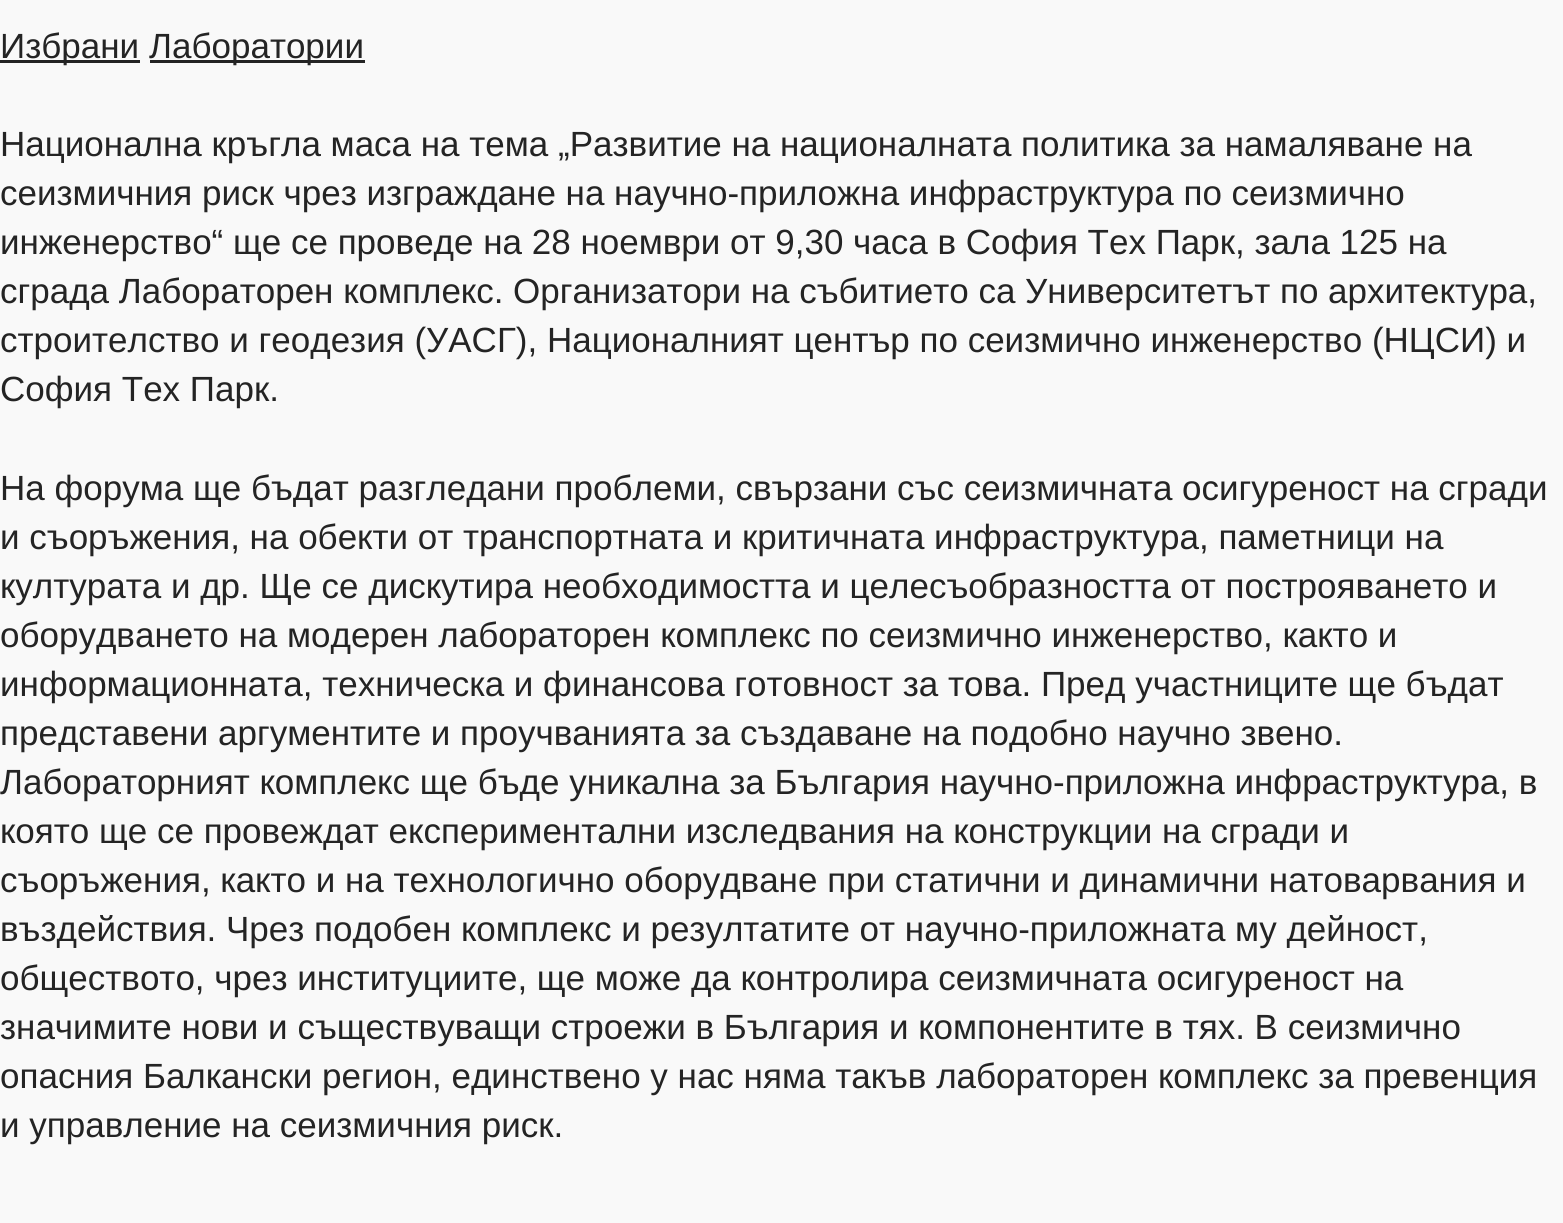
import math
import cairo

surface = cairo.ImageSurface(cairo.Format.RGB24, 1563, 1223)
ctx = cairo.Context(surface)
options = cairo.FontOptions()
options.set_hint_metrics(cairo.HintMetrics.OFF)
options.set_hint_style(cairo.HintStyle.NONE)
ctx.set_font_options(options)
ctx.set_miter_limit(4)


def ink(r, g, b):
    ctx.set_source_rgb(r / 255, g / 255, b / 255)


def write(x, y, s, family, size, color, bold=False, italic=False):
    ctx.select_font_face(family, cairo.FontSlant.ITALIC if italic else cairo.FontSlant.NORMAL, cairo.FontWeight.BOLD if bold else cairo.FontWeight.NORMAL)
    ctx.set_font_size(size)
    ink(*color)
    ctx.move_to(x, y)
    ctx.show_text(s)


def block(x, y, w, h, *color):
    ink(*color)
    ctx.rectangle(x, y, w, h)
    ctx.fill()


s1 = dict(family="Liberation Sans", size=35, color=(36, 36, 36))

ink(249, 249, 249)
ctx.paint()
block(0, 60, 140, 3, 36, 36, 36)
write(0, 58, "Избрани", **s1)
block(150, 60, 215, 3, 36, 36, 36)
write(149, 58, "Лаборатории", **s1)
write(0, 156, "Национална кръгла маса на тема „Развитие на националната политика за намаляване на", **s1)
write(0, 205, "сеизмичния риск чрез изграждане на научно-приложна инфраструктура по сеизмично", **s1)
write(0, 254, "инженерство“ ще се проведе на 28 ноември от 9,30 часа в София Тех Парк, зала 125 на", **s1)
write(0, 303, "сграда Лабораторен комплекс. Организатори на събитието са Университетът по архитектура,", **s1)
write(0, 352, "строителство и геодезия (УАСГ), Националният център по сеизмично инженерство (НЦСИ) и", **s1)
write(0, 401, "София Тех Парк.", **s1)
write(0, 500, "На форума ще бъдат разгледани проблеми, свързани със сеизмичната осигуреност на сгради", **s1)
write(0, 549, "и съоръжения, на обекти от транспортната и критичната инфраструктура, паметници на", **s1)
write(0, 598, "културата и др. Ще се дискутира необходимостта и целесъобразността от построяването и", **s1)
write(0, 647, "оборудването на модерен лабораторен комплекс по сеизмично инженерство, както и", **s1)
write(0, 696, "информационната, техническа и финансова готовност за това. Пред участниците ще бъдат", **s1)
write(0, 745, "представени аргументите и проучванията за създаване на подобно научно звено.", **s1)
write(0, 794, "Лабораторният комплекс ще бъде уникална за България научно-приложна инфраструктура, в", **s1)
write(0, 843, "която ще се провеждат експериментални изследвания на конструкции на сгради и", **s1)
write(0, 892, "съоръжения, както и на технологично оборудване при статични и динамични натоварвания и", **s1)
write(0, 941, "въздействия. Чрез подобен комплекс и резултатите от научно-приложната му дейност,", **s1)
write(0, 990, "обществото, чрез институциите, ще може да контролира сеизмичната осигуреност на", **s1)
write(0, 1039, "значимите нови и съществуващи строежи в България и компонентите в тях. В сеизмично", **s1)
write(0, 1088, "опасния Балкански регион, единствено у нас няма такъв лабораторен комплекс за превенция", **s1)
write(0, 1137, "и управление на сеизмичния риск.", **s1)
surface.write_to_png("screenshot.png")
